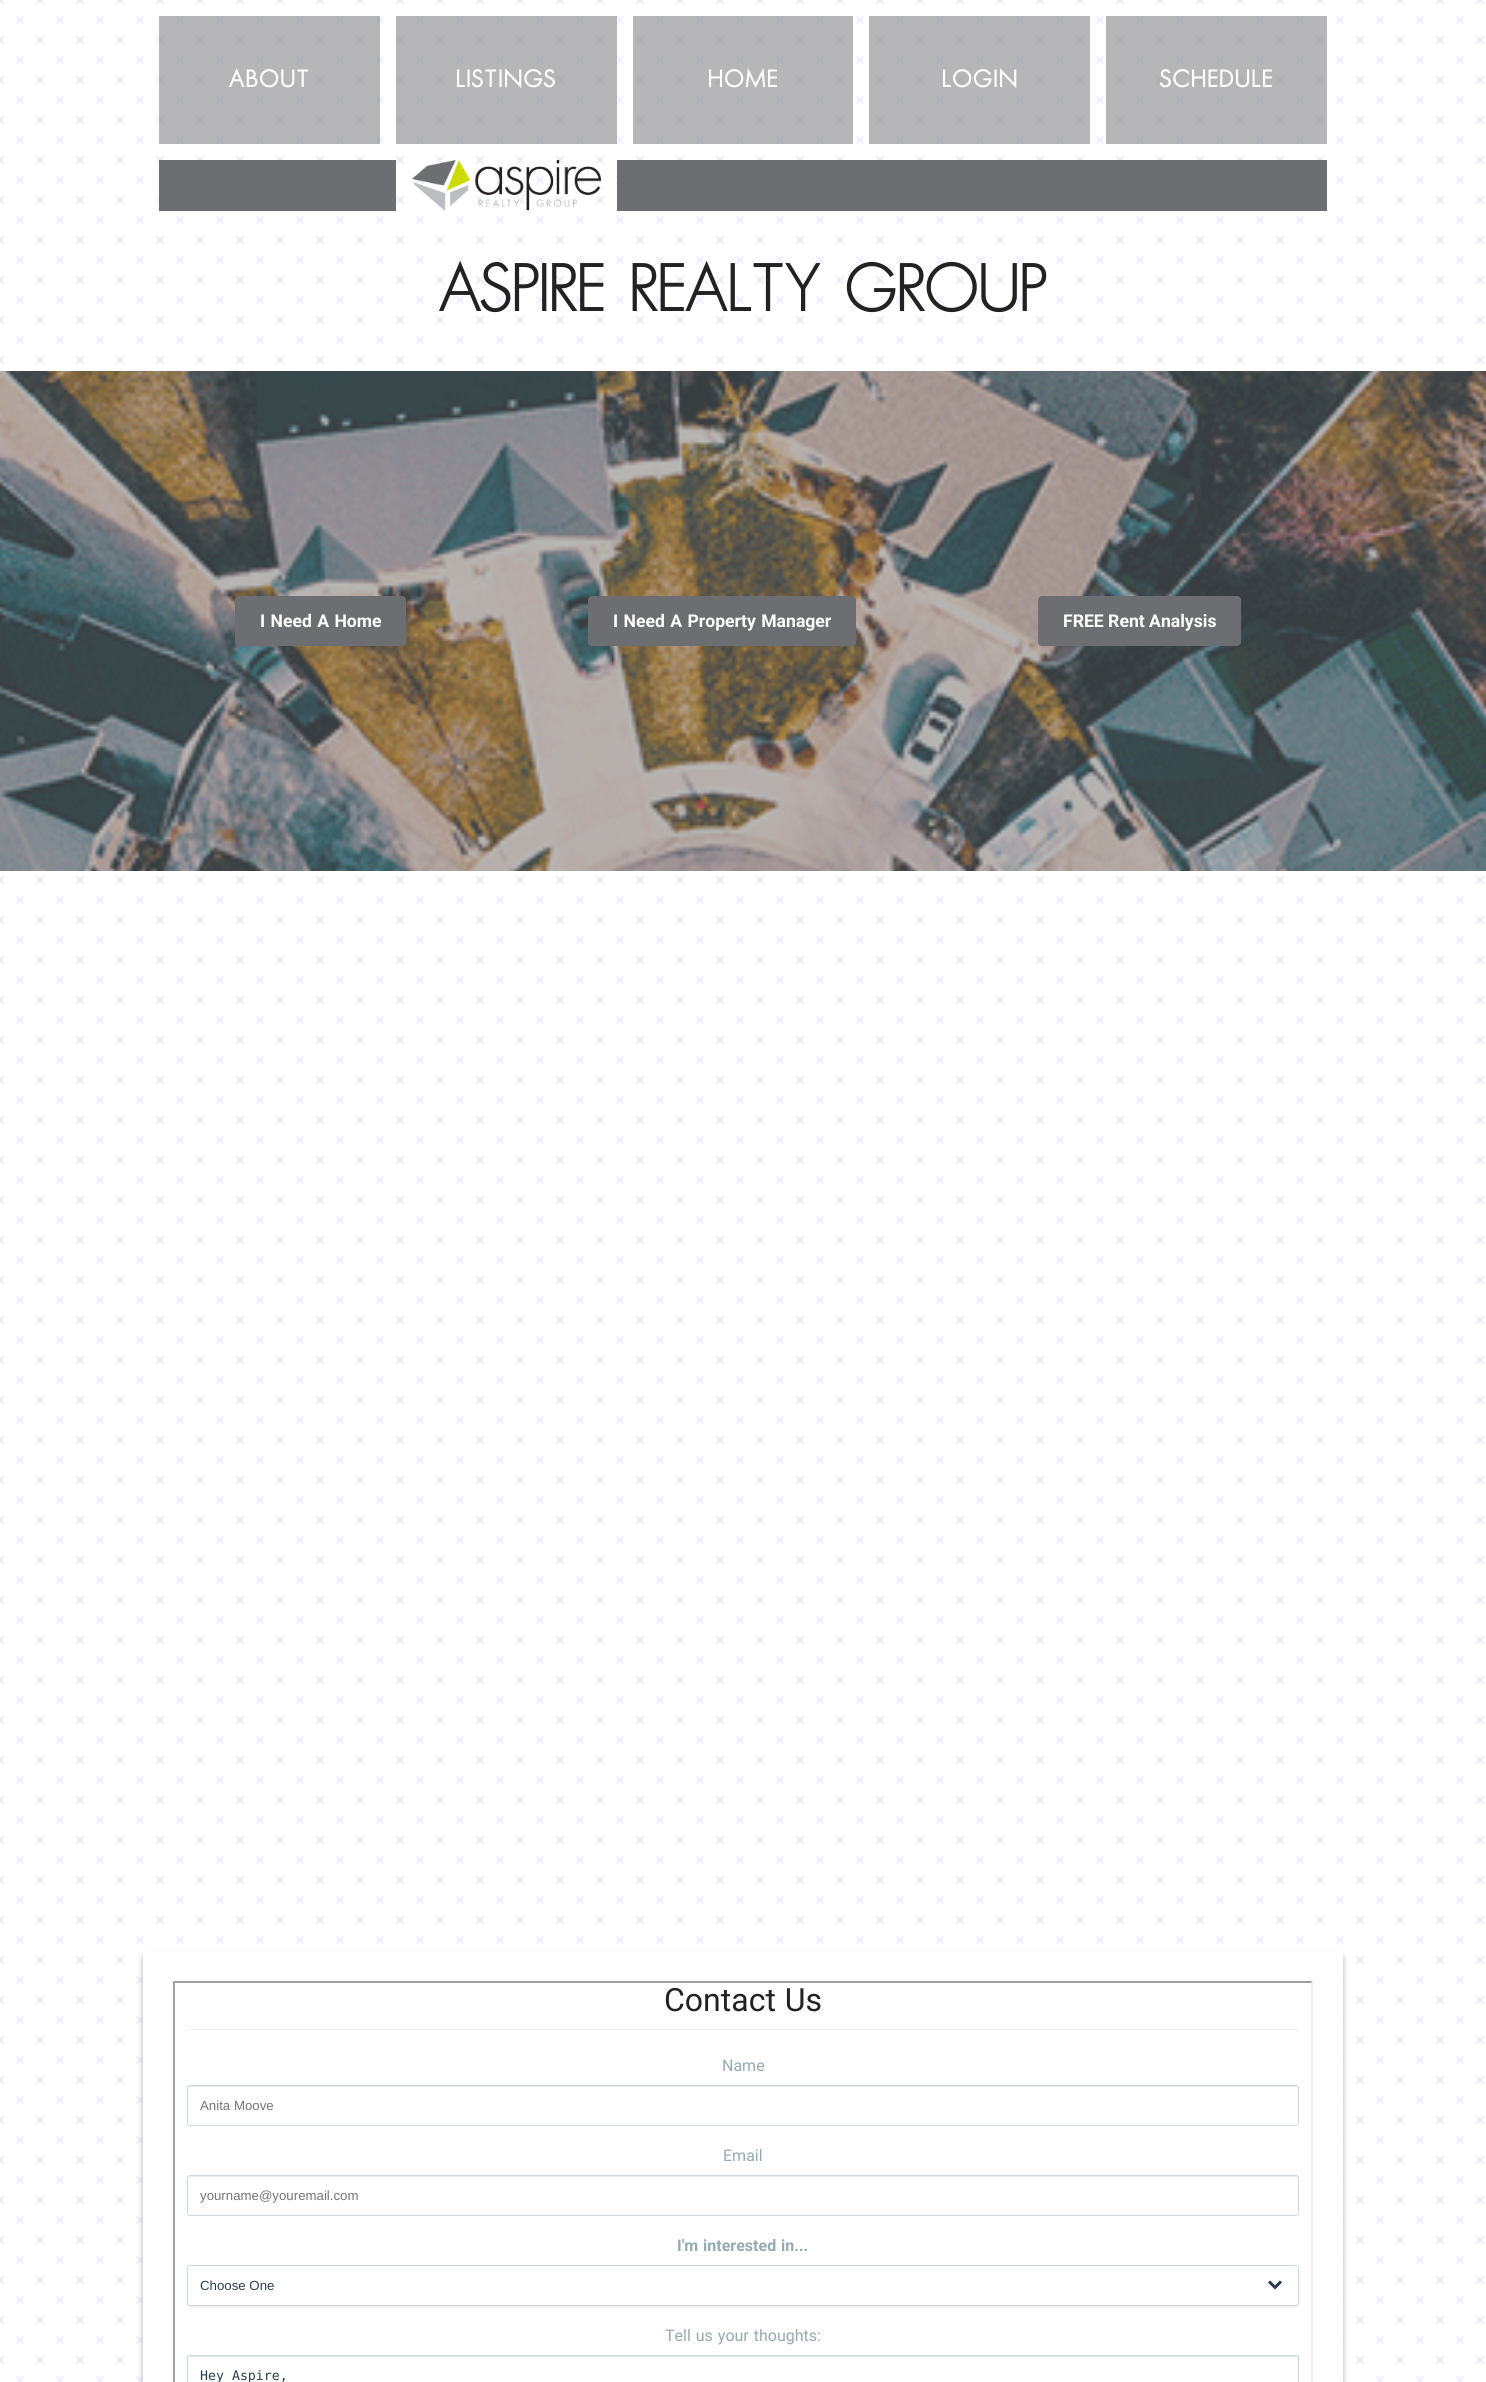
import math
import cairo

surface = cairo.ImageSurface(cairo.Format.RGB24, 1486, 2382)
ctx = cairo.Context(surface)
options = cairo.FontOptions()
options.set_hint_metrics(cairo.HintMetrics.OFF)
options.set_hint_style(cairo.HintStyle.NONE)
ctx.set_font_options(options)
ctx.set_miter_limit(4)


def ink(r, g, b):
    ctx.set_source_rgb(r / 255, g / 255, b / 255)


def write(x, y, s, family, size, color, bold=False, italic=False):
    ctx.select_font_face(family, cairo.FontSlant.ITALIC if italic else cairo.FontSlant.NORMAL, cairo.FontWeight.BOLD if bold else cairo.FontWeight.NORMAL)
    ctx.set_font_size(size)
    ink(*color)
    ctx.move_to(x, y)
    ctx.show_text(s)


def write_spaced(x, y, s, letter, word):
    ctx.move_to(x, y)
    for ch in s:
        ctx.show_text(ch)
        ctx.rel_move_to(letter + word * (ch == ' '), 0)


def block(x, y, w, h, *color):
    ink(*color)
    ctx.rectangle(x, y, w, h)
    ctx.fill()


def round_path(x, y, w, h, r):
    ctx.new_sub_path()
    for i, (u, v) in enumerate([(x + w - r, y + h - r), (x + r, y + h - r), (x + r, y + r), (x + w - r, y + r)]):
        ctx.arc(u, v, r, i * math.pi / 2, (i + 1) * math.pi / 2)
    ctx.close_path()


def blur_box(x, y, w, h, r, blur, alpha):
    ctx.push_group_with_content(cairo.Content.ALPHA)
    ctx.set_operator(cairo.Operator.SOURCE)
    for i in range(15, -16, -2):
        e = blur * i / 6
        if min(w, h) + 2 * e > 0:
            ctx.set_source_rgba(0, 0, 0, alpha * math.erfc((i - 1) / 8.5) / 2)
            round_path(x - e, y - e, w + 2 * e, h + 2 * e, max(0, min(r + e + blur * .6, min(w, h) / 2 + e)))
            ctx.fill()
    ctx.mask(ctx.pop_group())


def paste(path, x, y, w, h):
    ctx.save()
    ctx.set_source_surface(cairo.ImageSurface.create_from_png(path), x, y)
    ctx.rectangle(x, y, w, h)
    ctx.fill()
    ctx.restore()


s1 = dict(family="Roboto", size=17.6, color=(255, 255, 255), bold=True)
s2 = dict(family="Roboto", size=16, color=(148, 170, 176))
s3 = dict(family="Liberation Sans", size=13.25, color=(117, 117, 117))
s4 = dict(family="Liberation Sans", size=13.25, color=(43, 62, 81))
s5 = dict(family="DejaVu Sans Mono", size=13.25, color=(43, 62, 81))

ink(255, 255, 255)
ctx.paint()
paste("pic1.png", 0, 0, 1484, 2382)
ctx.set_source_rgba(0.431, 0.435, 0.447, 0.5)
ctx.rectangle(159, 16, 221, 128)
ctx.fill()
ctx.select_font_face("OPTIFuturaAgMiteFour", cairo.FontSlant.NORMAL, cairo.FontWeight.BOLD)
ctx.set_font_size(22.5)
ink(255, 255, 255)
write_spaced(229, 87, "ABOUT", 2, 0)
ctx.set_source_rgba(0.431, 0.435, 0.447, 0.5)
ctx.rectangle(396, 16, 221, 128)
ctx.fill()
ink(255, 255, 255)
write_spaced(456, 87, "LISTINGS", 2, 0)
ctx.set_source_rgba(0.431, 0.435, 0.447, 0.5)
ctx.rectangle(633, 16, 220, 128)
ctx.fill()
ink(255, 255, 255)
write_spaced(708, 87, "HOME", 2, 0)
ctx.set_source_rgba(0.431, 0.435, 0.447, 0.5)
ctx.rectangle(869, 16, 221, 128)
ctx.fill()
ink(255, 255, 255)
write_spaced(942, 87, "LOGIN", 2, 0)
ctx.set_source_rgba(0.431, 0.435, 0.447, 0.5)
ctx.rectangle(1106, 16, 221, 128)
ctx.fill()
ink(255, 255, 255)
write_spaced(1160, 87, "SCHEDULE", 2, 0)
block(159, 160, 237, 51, 109, 110, 114)
paste("pic2.png", 412, 160, 189, 51)
block(617, 160, 710, 51, 109, 110, 114)
ctx.select_font_face("OPTIFuturaAgMiteFour Medium")
ctx.set_font_size(64)
ink(34, 34, 34)
write_spaced(439, 311, "ASPIRE REALTY GROUP", 0, 1)
paste("pic3.png", 0, 371, 1486, 500)
ink(109, 110, 114)
round_path(235, 596, 171, 50, 4)
ctx.fill()
ctx.select_font_face("Roboto", cairo.FontSlant.NORMAL, cairo.FontWeight.BOLD)
ctx.set_font_size(17.6)
ink(255, 255, 255)
write_spaced(260, 627, "I Need A Home", 0, 1)
ink(109, 110, 114)
round_path(588, 596, 268, 50, 4)
ctx.fill()
ink(255, 255, 255)
write_spaced(613, 627, "I Need A Property Manager", 0, 1)
ink(109, 110, 114)
round_path(1038, 596, 203, 50, 4)
ctx.fill()
write(1063, 627, "FREE Rent Analysis", **s1)
ink(0, 0, 0)
blur_box(143, 1955, 1200, 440, 4, 3, 0.3)
ink(255, 255, 255)
round_path(143, 1951, 1200, 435, 4)
ctx.fill()
ink(159, 159, 159)
ctx.new_path()
ctx.move_to(173, 1981)
ctx.line_to(1313, 1981)
ctx.line_to(1311, 1983)
ctx.line_to(175, 1983)
ctx.close_path()
ctx.fill()
ink(239, 239, 239)
ctx.new_path()
ctx.move_to(1313, 1981)
ctx.line_to(1313, 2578)
ctx.line_to(1311, 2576)
ctx.line_to(1311, 1983)
ctx.close_path()
ctx.fill()
ink(159, 159, 159)
ctx.new_path()
ctx.move_to(173, 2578)
ctx.line_to(173, 1981)
ctx.line_to(175, 1983)
ctx.line_to(175, 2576)
ctx.close_path()
ctx.fill()
block(187, 2029, 1112, 1, 236, 240, 241)
ctx.select_font_face("Roboto")
ctx.set_font_size(32)
ink(34, 34, 34)
write_spaced(664, 2011, "Contact Us", 0, 1)
write(722, 2071, "Name", **s2)
ink(235, 235, 235)
ctx.new_path()
ctx.move_to(190, 2087)
ctx.line_to(1296, 2087)
ctx.curve_to(1297, 2087, 1298, 2088, 1298, 2089)
ctx.line_to(1298, 2088)
ctx.curve_to(1298, 2087, 1297, 2086, 1296, 2086)
ctx.line_to(190, 2086)
ctx.curve_to(189, 2086, 188, 2087, 188, 2088)
ctx.line_to(188, 2089)
ctx.curve_to(188, 2088, 189, 2087, 190, 2087)
ctx.close_path()
ctx.fill()
round_path(187.5, 2085.5, 1111, 40, 2.5)
ink(207, 217, 219)
ctx.set_line_width(1)
ctx.stroke()
write(200, 2110, "Anita Moove", **s3)
write(723, 2161, "Email", **s2)
ink(235, 235, 235)
ctx.new_path()
ctx.move_to(190, 2177)
ctx.line_to(1296, 2177)
ctx.curve_to(1297, 2177, 1298, 2178, 1298, 2179)
ctx.line_to(1298, 2178)
ctx.curve_to(1298, 2177, 1297, 2176, 1296, 2176)
ctx.line_to(190, 2176)
ctx.curve_to(189, 2176, 188, 2177, 188, 2178)
ctx.line_to(188, 2179)
ctx.curve_to(188, 2178, 189, 2177, 190, 2177)
ctx.close_path()
ctx.fill()
round_path(187.5, 2175.5, 1111, 40, 2.5)
ink(207, 217, 219)
ctx.stroke()
write(200, 2200, "yourname@youremail.com", **s3)
ctx.select_font_face("Roboto", cairo.FontSlant.NORMAL, cairo.FontWeight.BOLD)
ctx.set_font_size(16)
ink(148, 170, 176)
write_spaced(677, 2251, "I'm interested in...", 0, 1)
ink(0, 0, 0)
blur_box(187, 2266, 1112, 41, 3, 1.5, 0.08)
ink(255, 255, 255)
round_path(187.5, 2265.5, 1111, 40, 2.5)
ctx.fill_preserve()
ink(207, 217, 219)
ctx.stroke()
write(200, 2290, "Choose One", **s4)
paste("pic4.png", 1268, 2280, 14, 10)
ctx.select_font_face("Roboto")
ctx.set_font_size(16)
ink(148, 170, 176)
write_spaced(665, 2341, "Tell us your thoughts:", 0, 1)
ink(235, 235, 235)
ctx.new_path()
ctx.move_to(190, 2357)
ctx.line_to(1296, 2357)
ctx.curve_to(1297, 2357, 1298, 2358, 1298, 2359)
ctx.line_to(1298, 2358)
ctx.curve_to(1298, 2357, 1297, 2356, 1296, 2356)
ctx.line_to(190, 2356)
ctx.curve_to(189, 2356, 188, 2357, 188, 2358)
ctx.line_to(188, 2359)
ctx.curve_to(188, 2358, 189, 2357, 190, 2357)
ctx.close_path()
ctx.fill()
round_path(187.5, 2355.5, 1111, 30, 2.5)
ink(207, 217, 219)
ctx.stroke()
write(200, 2380, "Hey Aspire,", **s5)
surface.write_to_png("screenshot.png")
